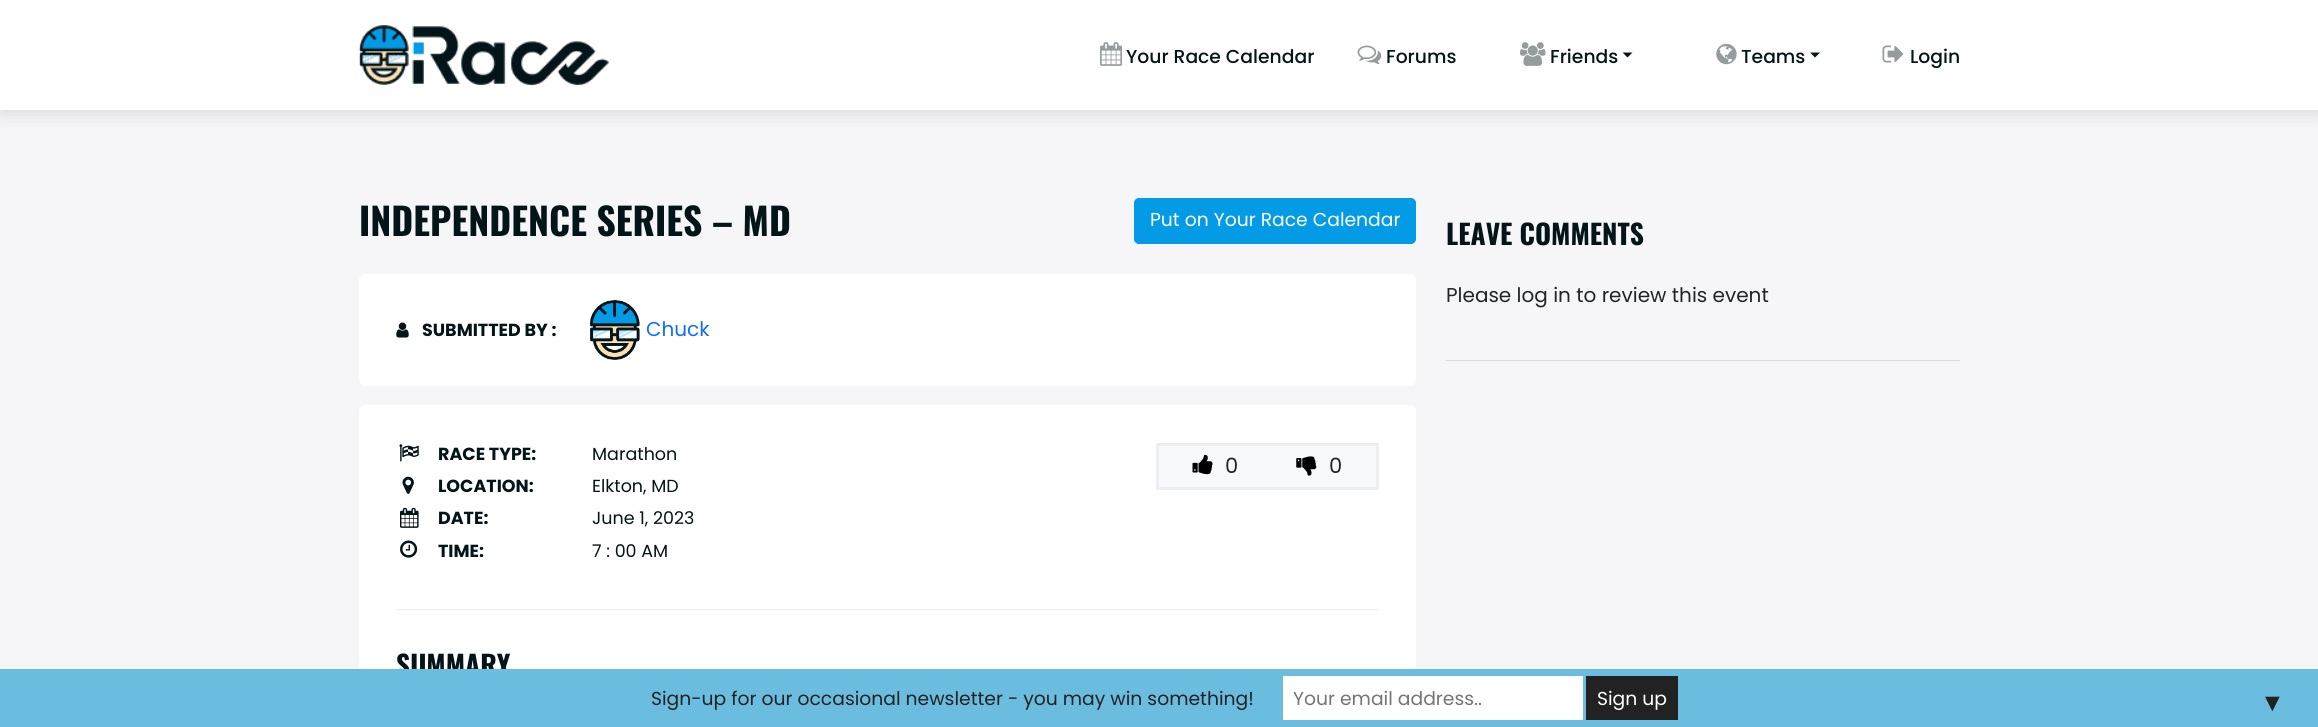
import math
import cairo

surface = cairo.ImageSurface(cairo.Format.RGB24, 2318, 727)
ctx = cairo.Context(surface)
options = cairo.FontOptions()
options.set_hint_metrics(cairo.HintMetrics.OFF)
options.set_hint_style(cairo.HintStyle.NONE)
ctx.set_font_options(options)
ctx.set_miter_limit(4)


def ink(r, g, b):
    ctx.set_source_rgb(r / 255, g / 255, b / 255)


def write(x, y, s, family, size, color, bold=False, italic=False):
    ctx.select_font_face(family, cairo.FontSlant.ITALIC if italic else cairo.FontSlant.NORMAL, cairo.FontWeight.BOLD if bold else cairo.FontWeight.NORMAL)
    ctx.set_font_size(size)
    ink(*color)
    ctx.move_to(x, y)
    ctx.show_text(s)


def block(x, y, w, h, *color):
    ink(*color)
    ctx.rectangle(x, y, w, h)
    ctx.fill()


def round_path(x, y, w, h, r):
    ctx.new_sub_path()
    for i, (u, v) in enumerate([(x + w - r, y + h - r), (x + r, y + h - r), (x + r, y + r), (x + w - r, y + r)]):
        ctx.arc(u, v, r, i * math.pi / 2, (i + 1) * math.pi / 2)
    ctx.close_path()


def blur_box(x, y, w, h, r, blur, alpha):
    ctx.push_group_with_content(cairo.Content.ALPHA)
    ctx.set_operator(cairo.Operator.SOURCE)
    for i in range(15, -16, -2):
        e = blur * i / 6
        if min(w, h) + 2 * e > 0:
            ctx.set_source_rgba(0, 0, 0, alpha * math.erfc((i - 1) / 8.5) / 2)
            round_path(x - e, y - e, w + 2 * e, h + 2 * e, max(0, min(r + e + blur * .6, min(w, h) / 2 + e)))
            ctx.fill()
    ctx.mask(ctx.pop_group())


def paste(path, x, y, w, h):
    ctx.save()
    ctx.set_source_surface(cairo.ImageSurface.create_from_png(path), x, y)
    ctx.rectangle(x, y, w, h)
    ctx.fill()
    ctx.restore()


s1 = dict(family="Poppins Medium", size=18.75, color=(3, 21, 25))
s2 = dict(family="Oswald", size=37.5, color=(3, 21, 25), bold=True)
s3 = dict(family="Poppins", size=18.75, color=(255, 255, 255))
s4 = dict(family="Poppins", size=17.5, color=(3, 21, 25), bold=True)
s5 = dict(family="Poppins", size=20, color=(13, 110, 253))
s6 = dict(family="Poppins", size=17.5, color=(3, 21, 25))
s7 = dict(family="Poppins", size=21, color=(33, 37, 41))
s8 = dict(family="Oswald", size=27.5, color=(3, 21, 25), bold=True)
s9 = dict(family="Poppins", size=20, color=(33, 37, 41))
s10 = dict(family="Poppins", size=18.75, color=(34, 34, 34))
s11 = dict(family="Poppins", size=18.75, color=(117, 117, 117))
s12 = dict(family="Liberation Sans", size=25, color=(34, 34, 34))

ink(255, 255, 255)
ctx.paint()
block(0, 110, 2318, 559, 246, 246, 248)
ctx.save()
ctx.rectangle(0, 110, 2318, 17)
ctx.clip()
ink(128, 128, 128)
blur_box(1, 1, 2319, 110, 0, 10.5, 0.3)
ctx.restore()
paste("pic1.png", 358, 25, 251, 60)
paste("pic2.png", 1100, 42, 23, 24)
write(1126, 63, "Your Race Calendar", **s1)
paste("pic3.png", 1357, 45, 25, 20)
write(1386, 63, "Forums", **s1)
paste("pic4.png", 1520, 42, 26, 24)
write(1550, 63, "Friends", **s1)
ctx.new_path()
ctx.move_to(1622.5, 52.5)
ctx.line_to(1632.5, 52.5)
ctx.line_to(1627.5, 57.5)
ctx.close_path()
ctx.fill()
paste("pic5.png", 1716, 43, 21, 22)
write(1741, 63, "Teams", **s1)
ctx.new_path()
ctx.move_to(1810, 52.5)
ctx.line_to(1820, 52.5)
ctx.line_to(1815, 57.5)
ctx.close_path()
ctx.fill()
paste("pic6.png", 1882, 45, 22, 18)
write(1910, 63, "Login", **s1)
write(359, 236, "INDEPENDENCE SERIES – MD", **s2)
ink(3, 155, 229)
round_path(1134.5, 198.5, 281, 45, 4.5)
ctx.fill_preserve()
ctx.set_line_width(1)
ctx.stroke()
write(1150, 226, "Put on Your Race Calendar", **s3)
round_path(359, 274, 1057, 112, 6)
ctx.fill()
paste("pic7.png", 396, 322, 13, 16)
write(422, 336, "SUBMITTED BY :", **s4)
paste("pic8.png", 590, 300, 50, 60)
write(646, 336, "Chuck", **s5)
ink(255, 255, 255)
round_path(359, 405, 1057, 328, 6)
ctx.fill()
block(396, 609, 983, 1, 239, 239, 240)
paste("pic9.png", 399, 444, 20, 18)
write(438, 460, "RACE TYPE:", **s4)
write(592, 460, "Marathon", **s6)
paste("pic10.png", 402, 476, 12, 18)
write(438, 492, "LOCATION:", **s4)
write(592, 492, "Elkton, MD", **s6)
paste("pic11.png", 400, 507, 19, 21)
write(438, 524, "DATE:", **s4)
write(592, 524, "June 1, 2023", **s6)
paste("pic12.png", 400, 540, 18, 18)
write(438, 557, "TIME:", **s4)
write(592, 557, "7 : 00 AM", **s6)
ink(248, 249, 250)
ctx.rectangle(1157.5, 444.5, 220, 44)
ctx.fill_preserve()
ink(236, 238, 241)
ctx.set_line_width(3)
ctx.stroke()
paste("pic13.png", 1192, 454, 21, 21)
write(1225, 473, "0", **s7)
paste("pic14.png", 1296, 456, 21, 20)
write(1329, 473, "0", **s7)
write(396, 676, "SUMMARY", **s8)
write(1446, 245, "LEAVE COMMENTS", **s8)
write(1446, 302, "Please log in to review this event", **s9)
block(1446, 360, 514, 1, 221, 221, 223)
block(0, 669, 2318, 58, 107, 189, 224)
write(651, 705, "Sign-up for our occasional newsletter - you may win something!", **s10)
block(1283, 676, 300, 44, 255, 255, 255)
write(1293, 705, "Your email address..", **s11)
block(1586, 676, 92, 44, 34, 34, 34)
write(1597, 705, "Sign up", **s3)
write(2260, 711, "▼", **s12)
surface.write_to_png("screenshot.png")
